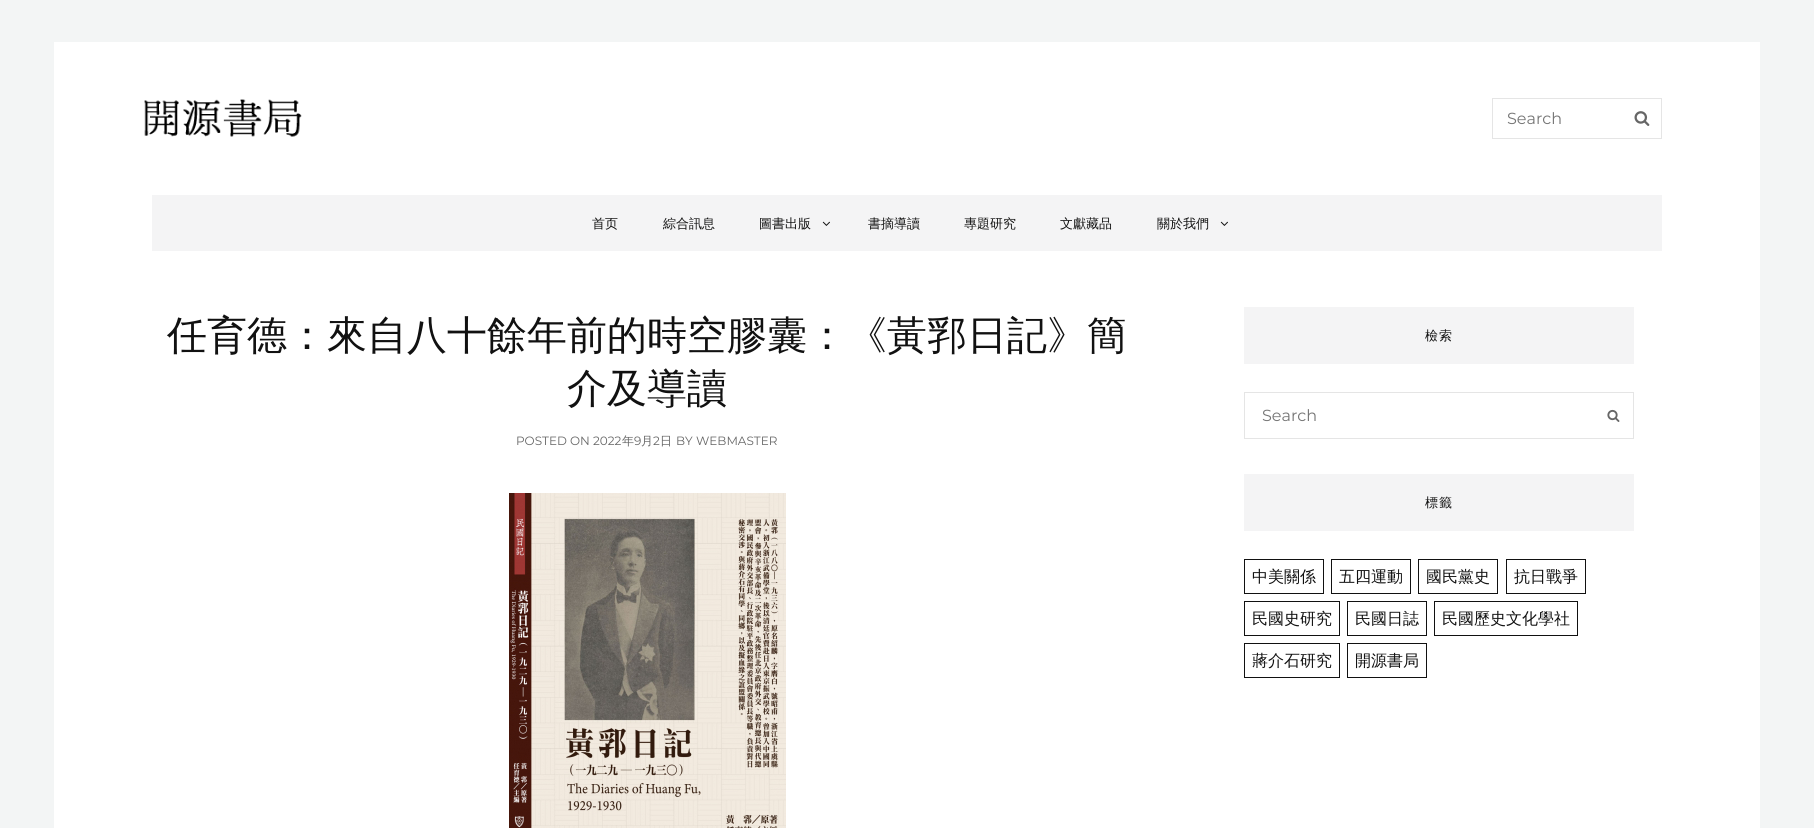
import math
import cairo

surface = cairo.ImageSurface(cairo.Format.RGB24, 1814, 828)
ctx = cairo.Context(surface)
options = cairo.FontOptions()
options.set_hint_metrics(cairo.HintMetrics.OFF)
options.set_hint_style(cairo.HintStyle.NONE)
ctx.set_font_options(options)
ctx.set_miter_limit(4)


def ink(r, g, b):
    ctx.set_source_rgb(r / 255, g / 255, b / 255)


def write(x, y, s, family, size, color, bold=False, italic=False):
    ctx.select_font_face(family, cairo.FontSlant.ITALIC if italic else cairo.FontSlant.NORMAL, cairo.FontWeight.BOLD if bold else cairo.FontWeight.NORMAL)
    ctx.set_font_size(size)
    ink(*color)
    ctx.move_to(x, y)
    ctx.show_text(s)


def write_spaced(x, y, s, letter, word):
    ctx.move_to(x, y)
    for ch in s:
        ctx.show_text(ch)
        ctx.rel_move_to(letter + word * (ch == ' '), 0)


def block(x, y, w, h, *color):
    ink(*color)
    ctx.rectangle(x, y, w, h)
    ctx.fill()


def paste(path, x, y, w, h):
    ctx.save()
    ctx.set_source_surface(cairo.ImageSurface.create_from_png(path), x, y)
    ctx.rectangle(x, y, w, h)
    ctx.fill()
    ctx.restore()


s1 = dict(family="Montserrat", size=16, color=(117, 117, 117))
s2 = dict(family="WenQuanYi Zen Hei Medium", size=13, color=(17, 17, 17))
s3 = dict(family="WenQuanYi Zen Hei Medium", size=40, color=(17, 17, 17))
s4 = dict(family="Montserrat", size=12, color=(102, 102, 102))
s5 = dict(family="WenQuanYi Zen Hei Medium", size=12, color=(102, 102, 102))
s6 = dict(family="WenQuanYi Zen Hei Medium", size=16, color=(17, 17, 17))

ink(243, 245, 245)
ctx.paint()
block(54, 42, 1706, 786, 255, 255, 255)
paste("pic1.png", 144, 99, 158, 38)
ctx.rectangle(1492.5, 98.5, 169, 40)
ink(229, 229, 229)
ctx.set_line_width(1)
ctx.stroke()
write(1507, 124, "Search", **s1)
paste("pic2.png", 1634, 111, 16, 15)
block(152, 195, 1510, 56, 244, 244, 245)
write(592, 228, "首页", **s2)
write(663, 228, "綜合訊息", **s2)
write(759, 228, "圖書出版", **s2)
paste("pic3.png", 822, 221, 8, 5)
write(868, 228, "書摘導讀", **s2)
write(964, 228, "專題研究", **s2)
write(1060, 228, "文獻藏品", **s2)
write(1157, 228, "關於我們", **s2)
paste("pic3.png", 1220, 221, 8, 5)
write(167, 349, "任育德：來自八十餘年前的時空膠囊：《黃郛日記》簡", **s3)
write(567, 402, "介及導讀", **s3)
write(516, 445, "POSTED ON 2022", **s4)
write(622, 445, "年", **s5)
write(634, 445, "9", **s4)
write(641, 445, "月", **s5)
write(653, 445, "2", **s4)
write(660, 445, "日", **s5)
write(676, 445, "BY", **s4)
write(696, 445, "WEBMASTER", **s4)
paste("pic4.png", 509, 493, 277, 335)
block(1244, 307, 390, 57, 244, 244, 245)
ctx.select_font_face("WenQuanYi Zen Hei Medium")
ctx.set_font_size(13)
ink(17, 17, 17)
write_spaced(1425, 340, "檢索", 1, 0)
ctx.rectangle(1244.5, 392.5, 389, 46)
ink(229, 229, 229)
ctx.stroke()
write(1262, 421, "Search", **s1)
paste("pic5.png", 1607, 409, 13, 13)
block(1244, 474, 390, 57, 244, 244, 245)
ctx.select_font_face("WenQuanYi Zen Hei Medium")
ctx.set_font_size(13)
ink(17, 17, 17)
write_spaced(1425, 507, "標籤", 1, 0)
ctx.rectangle(1244.5, 559.5, 79, 34)
ctx.stroke()
write(1252, 582, "中美關係", **s6)
ctx.rectangle(1331.5, 559.5, 79, 34)
ctx.stroke()
write(1339, 582, "五四運動", **s6)
ctx.rectangle(1418.5, 559.5, 79, 34)
ctx.stroke()
write(1426, 582, "國民黨史", **s6)
ctx.rectangle(1506.5, 559.5, 79, 34)
ctx.stroke()
write(1514, 582, "抗日戰爭", **s6)
ctx.rectangle(1244.5, 601.5, 95, 34)
ctx.stroke()
write(1252, 624, "民國史研究", **s6)
ctx.rectangle(1347.5, 601.5, 79, 34)
ctx.stroke()
write(1355, 624, "民國日誌", **s6)
ctx.rectangle(1434.5, 601.5, 143, 34)
ctx.stroke()
write(1442, 624, "民國歷史文化學社", **s6)
ctx.rectangle(1244.5, 643.5, 95, 34)
ctx.stroke()
write(1252, 666, "蔣介石研究", **s6)
ctx.rectangle(1347.5, 643.5, 79, 34)
ctx.stroke()
write(1355, 666, "開源書局", **s6)
surface.write_to_png("screenshot.png")
